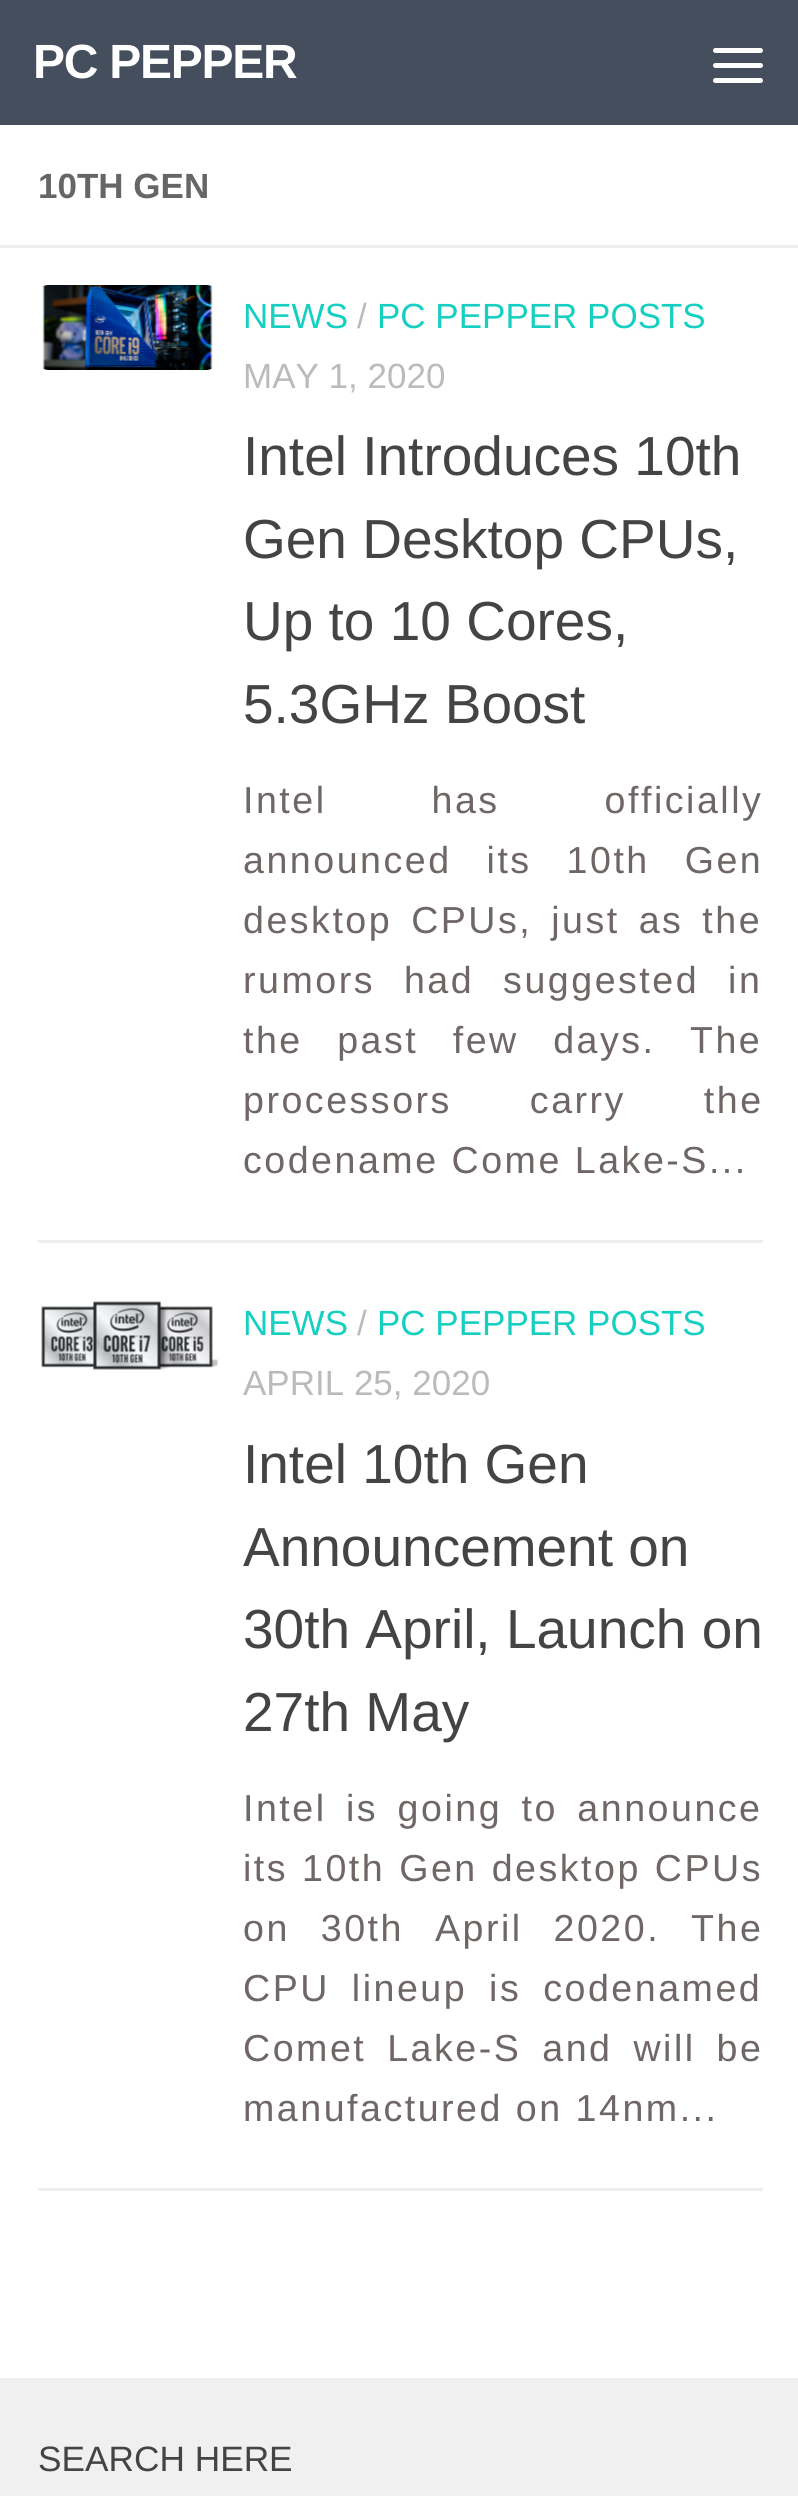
import math
import cairo

surface = cairo.ImageSurface(cairo.Format.RGB24, 798, 2496)
ctx = cairo.Context(surface)
options = cairo.FontOptions()
options.set_hint_metrics(cairo.HintMetrics.OFF)
options.set_hint_style(cairo.HintStyle.NONE)
ctx.set_font_options(options)
ctx.set_miter_limit(4)


def ink(r, g, b):
    ctx.set_source_rgb(r / 255, g / 255, b / 255)


def write(x, y, s, family, size, color, bold=False, italic=False):
    ctx.select_font_face(family, cairo.FontSlant.ITALIC if italic else cairo.FontSlant.NORMAL, cairo.FontWeight.BOLD if bold else cairo.FontWeight.NORMAL)
    ctx.set_font_size(size)
    ink(*color)
    ctx.move_to(x, y)
    ctx.show_text(s)


def write_spaced(x, y, s, letter, word):
    ctx.move_to(x, y)
    for ch in s:
        ctx.show_text(ch)
        ctx.rel_move_to(letter + word * (ch == ' '), 0)


def block(x, y, w, h, *color):
    ink(*color)
    ctx.rectangle(x, y, w, h)
    ctx.fill()


def round_path(x, y, w, h, r):
    ctx.new_sub_path()
    for i, (u, v) in enumerate([(x + w - r, y + h - r), (x + r, y + h - r), (x + r, y + r), (x + w - r, y + r)]):
        ctx.arc(u, v, r, i * math.pi / 2, (i + 1) * math.pi / 2)
    ctx.close_path()


def paste(path, x, y, w, h):
    ctx.save()
    ctx.set_source_surface(cairo.ImageSurface.create_from_png(path), x, y)
    ctx.rectangle(x, y, w, h)
    ctx.fill()
    ctx.restore()


s1 = dict(family="Liberation Sans", size=35, color=(102, 102, 102), bold=True)
s2 = dict(family="Liberation Sans", size=35, color=(22, 207, 193))
s3 = dict(family="Liberation Sans", size=35, color=(187, 187, 187))
s4 = dict(family="Liberation Sans", size=55, color=(68, 68, 68))
s5 = dict(family="Liberation Sans", size=35.25, color=(68, 68, 68))

ink(255, 255, 255)
ctx.paint()
block(0, 0, 798, 125, 69, 78, 92)
ctx.select_font_face("Liberation Sans", cairo.FontSlant.NORMAL, cairo.FontWeight.BOLD)
ctx.set_font_size(48)
ink(255, 255, 255)
write_spaced(33, 78, "PC PEPPER", -1.25, 0)
round_path(713, 48, 50, 5, 2.5)
ctx.fill()
round_path(713, 63, 50, 5, 2.5)
ctx.fill()
round_path(713, 78, 50, 5, 2.5)
ctx.fill()
block(0, 245, 798, 3, 238, 238, 238)
write(38, 198, "10TH GEN", **s1)
block(38, 1240, 725, 3, 238, 238, 238)
paste("pic1.png", 42, 285, 171, 85)
write(243, 328, "NEWS", **s2)
write(357, 328, "/", **s3)
write(377, 328, "PC PEPPER POSTS", **s2)
write(243, 388, "MAY 1, 2020", **s3)
write(243, 475, "Intel Introduces 10th", **s4)
write(243, 558, "Gen Desktop CPUs,", **s4)
write(243, 640, "Up to 10 Cores,", **s4)
write(243, 723, "5.3GHz Boost", **s4)
ctx.set_font_size(37.6)
ink(111, 102, 102)
write_spaced(243, 813, "Intel has officially", 2.5, 92)
write_spaced(243, 873, "announced its 10th Gen", 2.5, 22)
write_spaced(243, 933, "desktop CPUs, just as the", 2.5, 6)
write_spaced(243, 993, "rumors had suggested in", 2.5, 16)
write_spaced(243, 1053, "the past few days. The", 2.5, 21.5)
write_spaced(243, 1113, "processors carry the", 2.5, 65)
write_spaced(243, 1173, "codename Come Lake-S...", 2.5, 0)
block(38, 2188, 725, 3, 238, 238, 238)
paste("pic2.png", 41, 1301, 177, 69)
write(243, 1335, "NEWS", **s2)
write(357, 1335, "/", **s3)
write(377, 1335, "PC PEPPER POSTS", **s2)
write(243, 1395, "APRIL 25, 2020", **s3)
write(243, 1483, "Intel 10th Gen", **s4)
write(243, 1566, "Announcement on", **s4)
write(243, 1648, "30th April, Launch on", **s4)
write(243, 1731, "27th May", **s4)
ctx.set_font_size(37.6)
ink(111, 102, 102)
write_spaced(243, 1821, "Intel is going to announce", 2.5, 6.5)
write_spaced(243, 1881, "its 10th Gen desktop CPUs", 2.5, 1)
write_spaced(243, 1941, "on 30th April 2020. The", 2.5, 18)
write_spaced(243, 2001, "CPU lineup is codenamed", 2.5, 9)
write_spaced(243, 2061, "Comet Lake-S and will be", 2.5, 8)
write_spaced(243, 2121, "manufactured on 14nm...", 2.5, 0)
block(0, 2378, 798, 118, 240, 240, 240)
write(38, 2471, "SEARCH HERE", **s5)
surface.write_to_png("screenshot.png")
